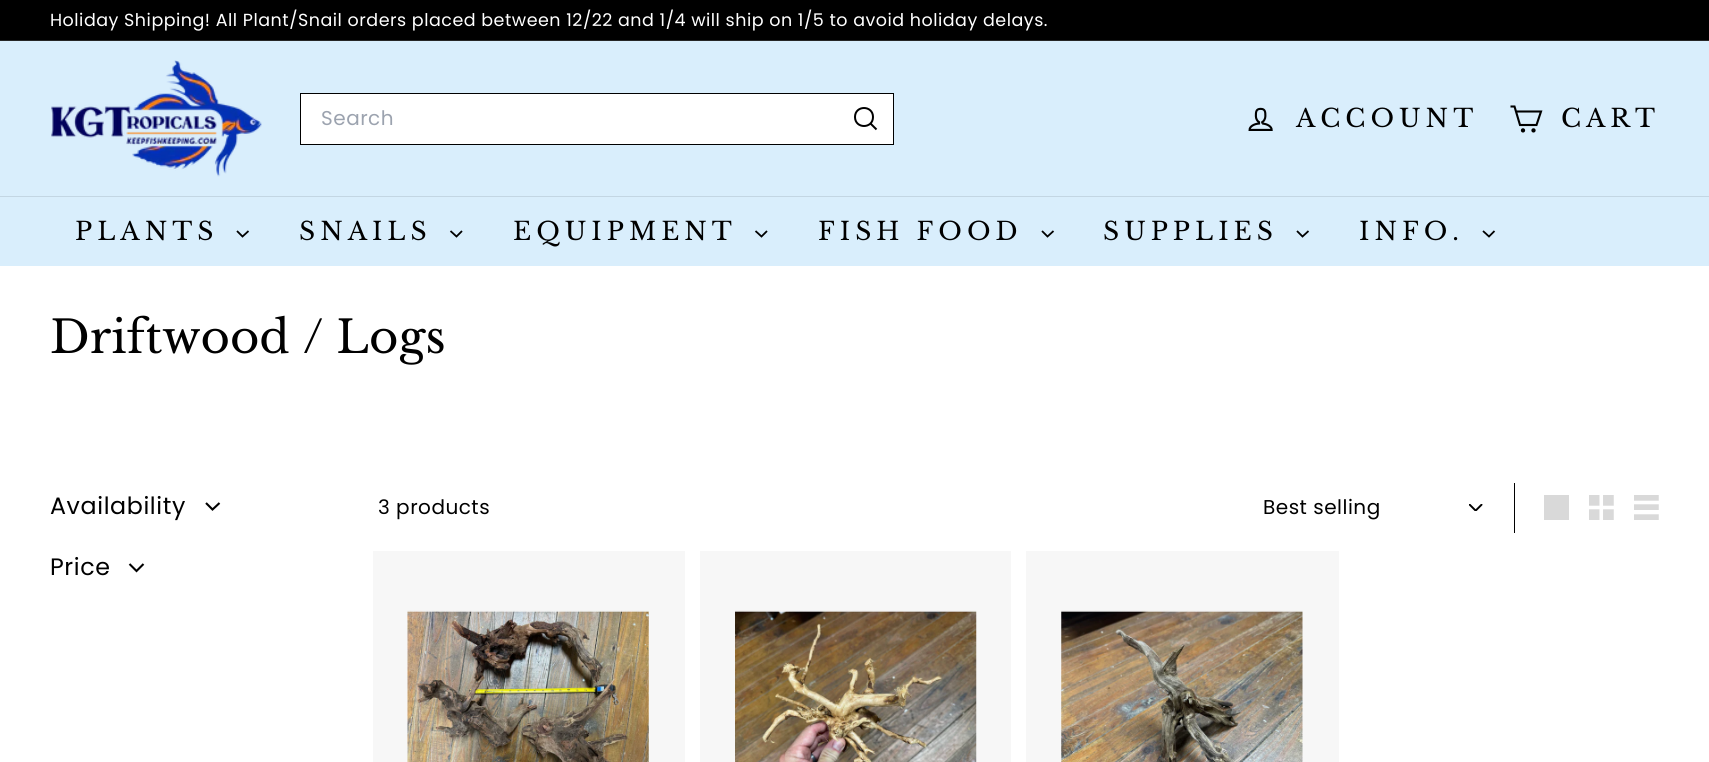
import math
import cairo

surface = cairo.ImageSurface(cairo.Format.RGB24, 1709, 762)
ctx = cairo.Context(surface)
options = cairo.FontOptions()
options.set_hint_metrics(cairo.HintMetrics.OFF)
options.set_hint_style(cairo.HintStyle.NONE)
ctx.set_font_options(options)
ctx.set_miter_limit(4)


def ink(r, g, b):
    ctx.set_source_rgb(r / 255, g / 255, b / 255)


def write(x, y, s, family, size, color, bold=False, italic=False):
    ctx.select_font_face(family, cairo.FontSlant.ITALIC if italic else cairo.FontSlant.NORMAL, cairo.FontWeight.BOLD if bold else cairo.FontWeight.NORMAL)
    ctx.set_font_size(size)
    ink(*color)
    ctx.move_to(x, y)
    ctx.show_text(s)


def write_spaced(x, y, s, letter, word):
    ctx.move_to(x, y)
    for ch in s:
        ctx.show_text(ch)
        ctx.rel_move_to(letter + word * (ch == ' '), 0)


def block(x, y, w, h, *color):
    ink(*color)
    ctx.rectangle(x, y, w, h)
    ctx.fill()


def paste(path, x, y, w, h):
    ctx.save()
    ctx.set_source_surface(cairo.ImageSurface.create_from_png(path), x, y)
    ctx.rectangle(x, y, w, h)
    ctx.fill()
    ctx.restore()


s1 = dict(family="Libre Baskerville", size=45, color=(0, 0, 0))

ink(255, 255, 255)
ctx.paint()
block(1026, 551, 313, 211, 247, 247, 247)
block(700, 551, 311, 211, 247, 247, 247)
block(373, 551, 312, 211, 247, 247, 247)
block(0, 0, 1709, 40, 0, 0, 0)
ctx.select_font_face("Poppins")
ctx.set_font_size(17.5)
ink(255, 255, 255)
write_spaced(50, 26, "Holiday Shipping! All Plant/Snail orders placed between 12/22 and 1/4 will ship on 1/5 to avoid holiday delays.", 0.5, 0)
block(0, 40, 1709, 1, 38, 38, 38)
block(0, 41, 1709, 155, 217, 238, 252)
paste("pic1.png", 51, 60, 211, 117)
ink(255, 255, 255)
ctx.rectangle(300.5, 93.5, 593, 51)
ctx.fill_preserve()
ink(0, 0, 0)
ctx.set_line_width(1)
ctx.stroke()
ctx.set_font_size(20)
ink(156, 163, 175)
write_spaced(321, 125, "Search", 0.5, 0)
ctx.new_path()
ctx.move_to(873, 117)
ctx.curve_to(873, 129, 855, 129, 855, 117)
ctx.curve_to(855, 105, 873, 105, 873, 117)
ctx.move_to(876.5, 129.5)
ctx.line_to(870.5, 123.5)
ink(0, 0, 0)
ctx.set_line_width(2)
ctx.stroke()
paste("pic2.png", 1248, 107, 25, 24)
ctx.select_font_face("Libre Baskerville")
ctx.set_font_size(25)
write_spaced(1296, 127, "ACCOUNT", 5, 0)
ctx.new_path()
ctx.move_to(1516, 111.5)
ctx.line_to(1541, 111.5)
ctx.line_to(1536.5, 125)
ctx.line_to(1520, 125)
ctx.line_to(1514.5, 106.5)
ctx.line_to(1510.5, 106.5)
ctx.set_line_width(2.1)
ctx.stroke()
ctx.arc(1523, 130.4, 1.1, 0, 2 * math.pi)
ctx.stroke()
ctx.arc(1533.5, 130.4, 1.1, 0, 2 * math.pi)
ctx.stroke()
write_spaced(1561, 127, "CART", 5, 0)
block(0, 197, 1709, 69, 217, 238, 252)
block(0, 196, 1709, 1, 195, 214, 227)
ink(0, 0, 0)
write_spaced(75, 240, "PLANTS", 5, 0)
ctx.new_path()
ctx.move_to(237, 231)
ctx.line_to(242.5, 236.5)
ctx.line_to(248.5, 231)
ctx.set_line_width(1.8)
ctx.stroke()
write_spaced(299, 240, "SNAILS", 5, 0)
ctx.new_path()
ctx.move_to(450.5, 231)
ctx.line_to(456.5, 236.5)
ctx.line_to(462, 231)
ctx.stroke()
write_spaced(513, 240, "EQUIPMENT", 5, 0)
ctx.new_path()
ctx.move_to(755.5, 231)
ctx.line_to(761.5, 236.5)
ctx.line_to(767, 231)
ctx.stroke()
write_spaced(818, 240, "FISH FOOD", 5, 0)
ctx.new_path()
ctx.move_to(1042, 231)
ctx.line_to(1047.5, 236.5)
ctx.line_to(1053.5, 231)
ctx.stroke()
write_spaced(1103, 240, "SUPPLIES", 5, 0)
ctx.new_path()
ctx.move_to(1297, 231)
ctx.line_to(1302.5, 236.5)
ctx.line_to(1308.5, 231)
ctx.stroke()
write_spaced(1359, 240, "INFO.", 5, 0)
ctx.new_path()
ctx.move_to(1483, 231)
ctx.line_to(1489, 236.5)
ctx.line_to(1494.5, 231)
ctx.stroke()
write(50, 353, "Driftwood / Logs", **s1)
ctx.select_font_face("Poppins")
ctx.set_font_size(23.75)
write_spaced(50, 514, "Availability", 0.6, 0)
ctx.new_path()
ctx.move_to(206, 503)
ctx.line_to(212.5, 509.5)
ctx.line_to(219.5, 503)
ctx.set_line_width(2.1)
ctx.stroke()
write_spaced(50, 575, "Price", 0.6, 0)
ctx.new_path()
ctx.move_to(129.5, 564)
ctx.line_to(136.5, 571)
ctx.line_to(143.5, 564)
ctx.stroke()
ctx.set_font_size(20)
write_spaced(378, 514, "3 products", 0.5, 0)
block(1514, 483, 1, 50, 0, 0, 0)
paste("pic3.png", 1469, 504, 14, 7)
write_spaced(1263, 514, "Best selling", 0.5, 0)
block(1544, 495, 25, 25, 217, 217, 217)
paste("pic4.png", 1589, 495, 25, 25)
paste("pic5.png", 1634, 495, 25, 25)
paste("pic6.png", 407, 610, 242, 152)
paste("pic7.png", 735, 610, 242, 152)
paste("pic8.png", 1061, 610, 242, 152)
surface.write_to_png("screenshot.png")
